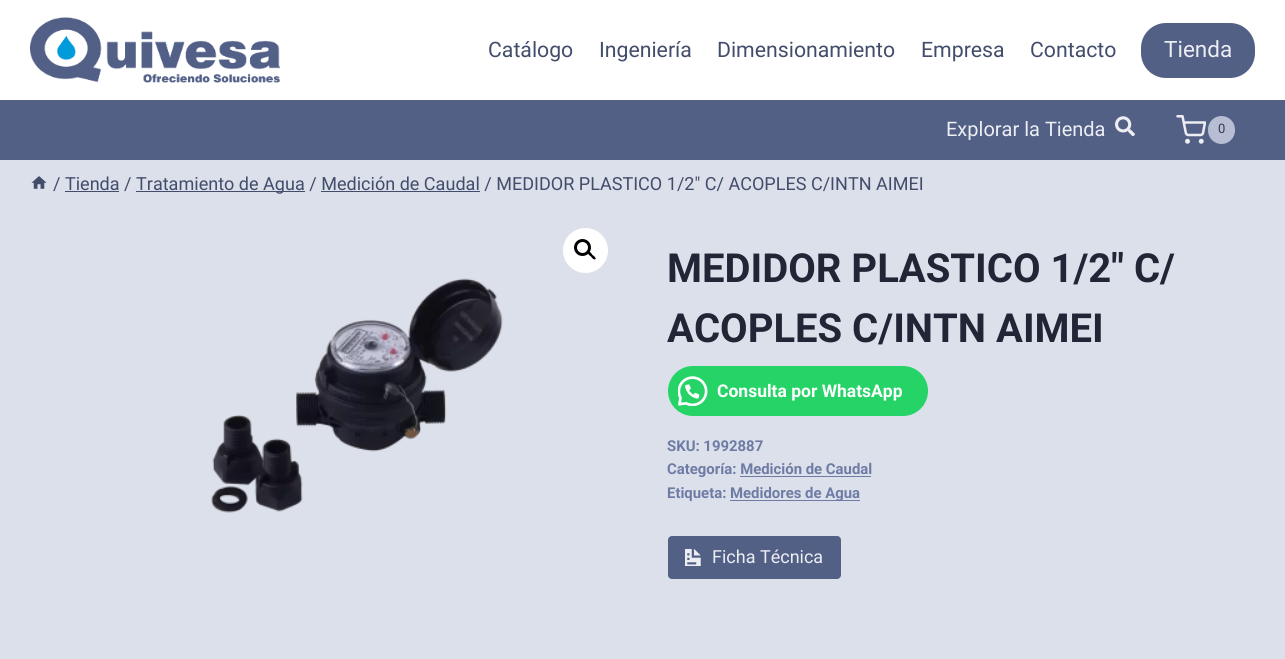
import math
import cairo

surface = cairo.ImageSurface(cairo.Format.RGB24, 1285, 659)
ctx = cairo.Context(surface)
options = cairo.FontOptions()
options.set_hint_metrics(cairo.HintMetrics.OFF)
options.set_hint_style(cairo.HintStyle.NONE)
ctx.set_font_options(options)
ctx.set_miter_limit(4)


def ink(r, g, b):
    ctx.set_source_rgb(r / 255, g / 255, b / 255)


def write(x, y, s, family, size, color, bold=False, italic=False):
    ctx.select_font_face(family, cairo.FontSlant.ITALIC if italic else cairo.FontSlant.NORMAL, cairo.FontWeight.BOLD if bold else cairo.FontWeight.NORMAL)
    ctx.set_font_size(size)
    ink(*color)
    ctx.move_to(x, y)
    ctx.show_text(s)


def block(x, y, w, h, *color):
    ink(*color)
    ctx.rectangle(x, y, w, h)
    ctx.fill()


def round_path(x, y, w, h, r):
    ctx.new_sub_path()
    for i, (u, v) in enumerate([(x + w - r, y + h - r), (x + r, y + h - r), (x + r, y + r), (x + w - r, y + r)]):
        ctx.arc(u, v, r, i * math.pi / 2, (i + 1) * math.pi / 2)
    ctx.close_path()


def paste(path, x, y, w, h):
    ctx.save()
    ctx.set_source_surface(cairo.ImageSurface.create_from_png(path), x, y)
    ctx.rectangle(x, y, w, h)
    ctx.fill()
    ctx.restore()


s1 = dict(family="Roboto", size=21.25, color=(66, 77, 107))
s2 = dict(family="Roboto", size=22.5, color=(236, 238, 243))
s3 = dict(family="Roboto", size=20, color=(236, 238, 243))
s4 = dict(family="Roboto", size=13, color=(51, 59, 82))
s5 = dict(family="Roboto", size=18.05, color=(66, 77, 107))
s6 = dict(family="Roboto", size=40, color=(33, 38, 54), bold=True)
s7 = dict(family="Roboto", size=17.5, color=(255, 255, 255), bold=True)
s8 = dict(family="Roboto", size=14.9, color=(110, 124, 165), bold=True)
s9 = dict(family="Roboto", size=18, color=(236, 238, 243))

ink(220, 224, 234)
ctx.paint()
block(0, 0, 1285, 100, 255, 255, 255)
paste("pic1.png", 30, 17, 250, 66)
write(488, 57, "Catálogo", **s1)
write(599, 57, "Ingeniería", **s1)
write(717, 57, "Dimensionamiento", **s1)
write(921, 57, "Empresa", **s1)
write(1030, 57, "Contacto", **s1)
ink(83, 96, 134)
round_path(1141, 23, 114, 55, 25)
ctx.fill()
write(1164, 57, "Tienda", **s2)
block(0, 100, 1285, 60, 83, 96, 134)
write(946, 136, "Explorar la Tienda", **s3)
paste("pic2.png", 1115, 116, 20, 20)
paste("pic3.png", 1176, 115, 30, 29)
ink(183, 189, 210)
round_path(1208, 116, 27, 28, 13.5)
ctx.fill()
write(1218, 133, "0", **s4)
paste("pic4.png", 31, 176, 16, 13)
write(53, 190, "/ Tienda /", **s5)
block(136, 191, 169, 1, 66, 77, 107)
write(136, 190, "Tratamiento de Agua / Medición de Caudal / MEDIDOR PLASTICO 1/2″ C/ ACOPLES C/INTN AIMEI", **s5)
block(65, 191, 54, 1, 66, 77, 107)
block(321, 191, 159, 1, 66, 77, 107)
ink(255, 255, 255)
ctx.new_path()
ctx.arc(585.5, 250.5, 22.5, 0, 2 * math.pi)
ctx.fill()
ctx.arc(582.5, 247.5, 7, 0, 2 * math.pi)
ink(0, 0, 0)
ctx.set_line_width(3)
ctx.stroke()
ctx.new_path()
ctx.move_to(588, 252)
ctx.curve_to(589.5, 250.5, 592, 254, 592.5, 255)
ctx.curve_to(593.5, 255.5, 596.5, 258, 595.5, 259)
ctx.curve_to(594, 260.5, 591.5, 257.5, 591, 256.5)
ctx.curve_to(590, 256, 587, 253.5, 588, 252)
ctx.close_path()
ctx.fill()
paste("pic5.png", 211, 278, 292, 235)
write(667, 282, "MEDIDOR PLASTICO 1/2″ C/", **s6)
write(667, 342, "ACOPLES C/INTN AIMEI", **s6)
ink(37, 211, 102)
round_path(668, 366, 260, 50, 25)
ctx.fill()
paste("pic6.png", 678, 376, 30, 30)
write(717, 397, "Consulta por WhatsApp", **s7)
write(667, 451, "SKU: 1992887", **s8)
write(667, 474, "Categoría: Medición de Caudal", **s8)
block(740, 476, 131, 1, 110, 124, 165)
write(667, 498, "Etiqueta:", **s8)
block(730, 500, 130, 1, 110, 124, 165)
write(730, 498, "Medidores de Agua", **s8)
ink(83, 96, 134)
round_path(668, 536, 173, 43, 4)
ctx.fill()
paste("pic7.png", 685, 549, 16, 17)
write(712, 563, "Ficha Técnica", **s9)
surface.write_to_png("screenshot.png")
